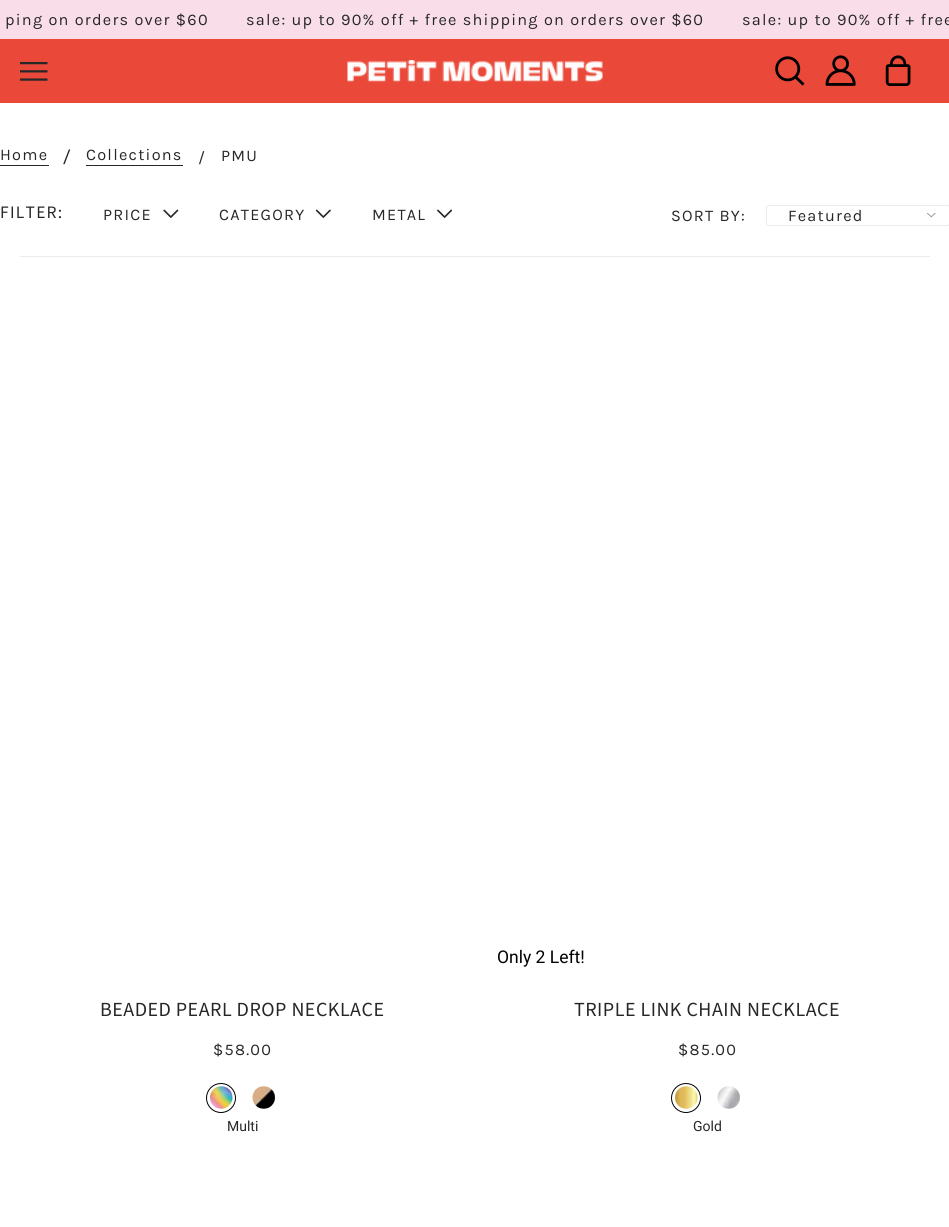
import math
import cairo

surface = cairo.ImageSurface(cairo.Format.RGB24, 949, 1227)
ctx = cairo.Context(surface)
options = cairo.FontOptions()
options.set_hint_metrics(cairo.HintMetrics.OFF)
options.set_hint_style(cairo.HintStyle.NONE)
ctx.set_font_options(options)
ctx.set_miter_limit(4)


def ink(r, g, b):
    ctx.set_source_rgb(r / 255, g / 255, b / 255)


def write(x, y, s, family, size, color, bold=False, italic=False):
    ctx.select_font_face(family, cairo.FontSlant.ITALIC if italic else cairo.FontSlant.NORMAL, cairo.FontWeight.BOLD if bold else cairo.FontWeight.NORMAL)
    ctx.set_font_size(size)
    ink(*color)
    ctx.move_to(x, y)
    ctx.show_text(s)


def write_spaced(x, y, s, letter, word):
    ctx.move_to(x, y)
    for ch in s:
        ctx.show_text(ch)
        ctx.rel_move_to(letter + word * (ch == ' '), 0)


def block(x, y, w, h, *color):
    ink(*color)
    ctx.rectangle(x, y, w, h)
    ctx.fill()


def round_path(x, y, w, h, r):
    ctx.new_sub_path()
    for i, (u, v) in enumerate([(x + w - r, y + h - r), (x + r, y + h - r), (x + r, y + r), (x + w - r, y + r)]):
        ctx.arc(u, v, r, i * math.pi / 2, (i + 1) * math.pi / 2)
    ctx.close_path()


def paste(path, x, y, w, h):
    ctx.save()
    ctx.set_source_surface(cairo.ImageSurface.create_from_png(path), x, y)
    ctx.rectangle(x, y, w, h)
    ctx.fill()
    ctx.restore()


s1 = dict(family="Roboto", size=19, color=(39, 39, 39))
s2 = dict(family="Roboto", size=14, color=(39, 39, 39))
s3 = dict(family="Roboto", size=17.5, color=(0, 0, 0))

ink(255, 255, 255)
ctx.paint()
block(0, 0, 949, 39, 249, 222, 233)
ctx.select_font_face("Karla")
ctx.set_font_size(16.25)
ink(39, 39, 39)
write_spaced(5, 25, "ping on orders over $60", 1.25, 0)
write_spaced(246, 25, "sale: up to 90% off + free shipping on orders over $60", 1.25, 0)
write_spaced(742, 25, "sale: up to 90% off + free", 1.25, 0)
block(0, 39, 949, 64, 234, 73, 57)
paste("pic1.png", 20, 62, 28, 19)
paste("pic2.png", 347, 60, 256, 22)
paste("pic3.png", 775, 56, 30, 30)
paste("pic4.png", 825, 55, 31, 31)
paste("pic5.png", 885, 55, 26, 31)
ink(39, 39, 39)
write_spaced(0, 160, "Home", 1.25, 0)
block(0, 165, 49, 1, 39, 39, 39)
write(63, 163, "/", **s1)
ctx.select_font_face("Karla")
ctx.set_font_size(16.25)
write_spaced(86, 160, "Collections", 1.25, 0)
block(86, 165, 97, 1, 39, 39, 39)
write_spaced(198, 163, "/", 1.25, 0)
write_spaced(221, 161, "PMU", 1.25, 0)
ctx.select_font_face("Source Sans Pro")
ctx.set_font_size(17.5)
write_spaced(0, 218, "FILTER:", 1.25, 0)
ctx.select_font_face("Karla")
ctx.set_font_size(16.25)
write_spaced(103, 220, "PRICE", 1.25, 0)
paste("pic6.png", 163, 209, 16, 9)
write_spaced(219, 220, "CATEGORY", 1.25, 0)
paste("pic7.png", 315, 209, 16, 9)
write_spaced(372, 220, "METAL", 1.25, 0)
paste("pic8.png", 437, 209, 15, 9)
write_spaced(671, 221, "SORT BY:", 1.25, 0)
paste("pic9.png", 926, 213, 10, 5)
round_path(766.5, 205.5, 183, 20, 2)
ink(235, 235, 235)
ctx.set_line_width(1)
ctx.stroke()
ink(39, 39, 39)
write_spaced(788, 221, "Featured", 1.25, 0)
block(20, 256, 910, 1, 235, 235, 235)
ctx.select_font_face("Source Sans Pro")
ctx.set_font_size(20)
ink(39, 39, 39)
write_spaced(100, 1016, "BEADED PEARL DROP NECKLACE", 0.5, 0)
ctx.select_font_face("Karla")
ctx.set_font_size(16.25)
write_spaced(213, 1055, "$58.00", 1.25, 0)
paste("pic10.png", 210, 1086, 23, 23)
ctx.arc(221, 1098, 14.5, 0, 2 * math.pi)
ink(0, 0, 0)
ctx.stroke()
paste("pic11.png", 252, 1086, 23, 23)
write(227, 1131, "Multi", **s2)
write(497, 963, "Only 2 Left!", **s3)
ctx.select_font_face("Source Sans Pro")
ctx.set_font_size(20)
ink(39, 39, 39)
write_spaced(574, 1016, "TRIPLE LINK CHAIN NECKLACE", 0.5, 0)
ctx.select_font_face("Karla")
ctx.set_font_size(16.25)
write_spaced(678, 1055, "$85.00", 1.25, 0)
paste("pic12.png", 675, 1086, 23, 23)
ctx.arc(686, 1098, 14.5, 0, 2 * math.pi)
ink(0, 0, 0)
ctx.stroke()
paste("pic13.png", 717, 1086, 23, 23)
write(693, 1131, "Gold", **s2)
surface.write_to_png("screenshot.png")
